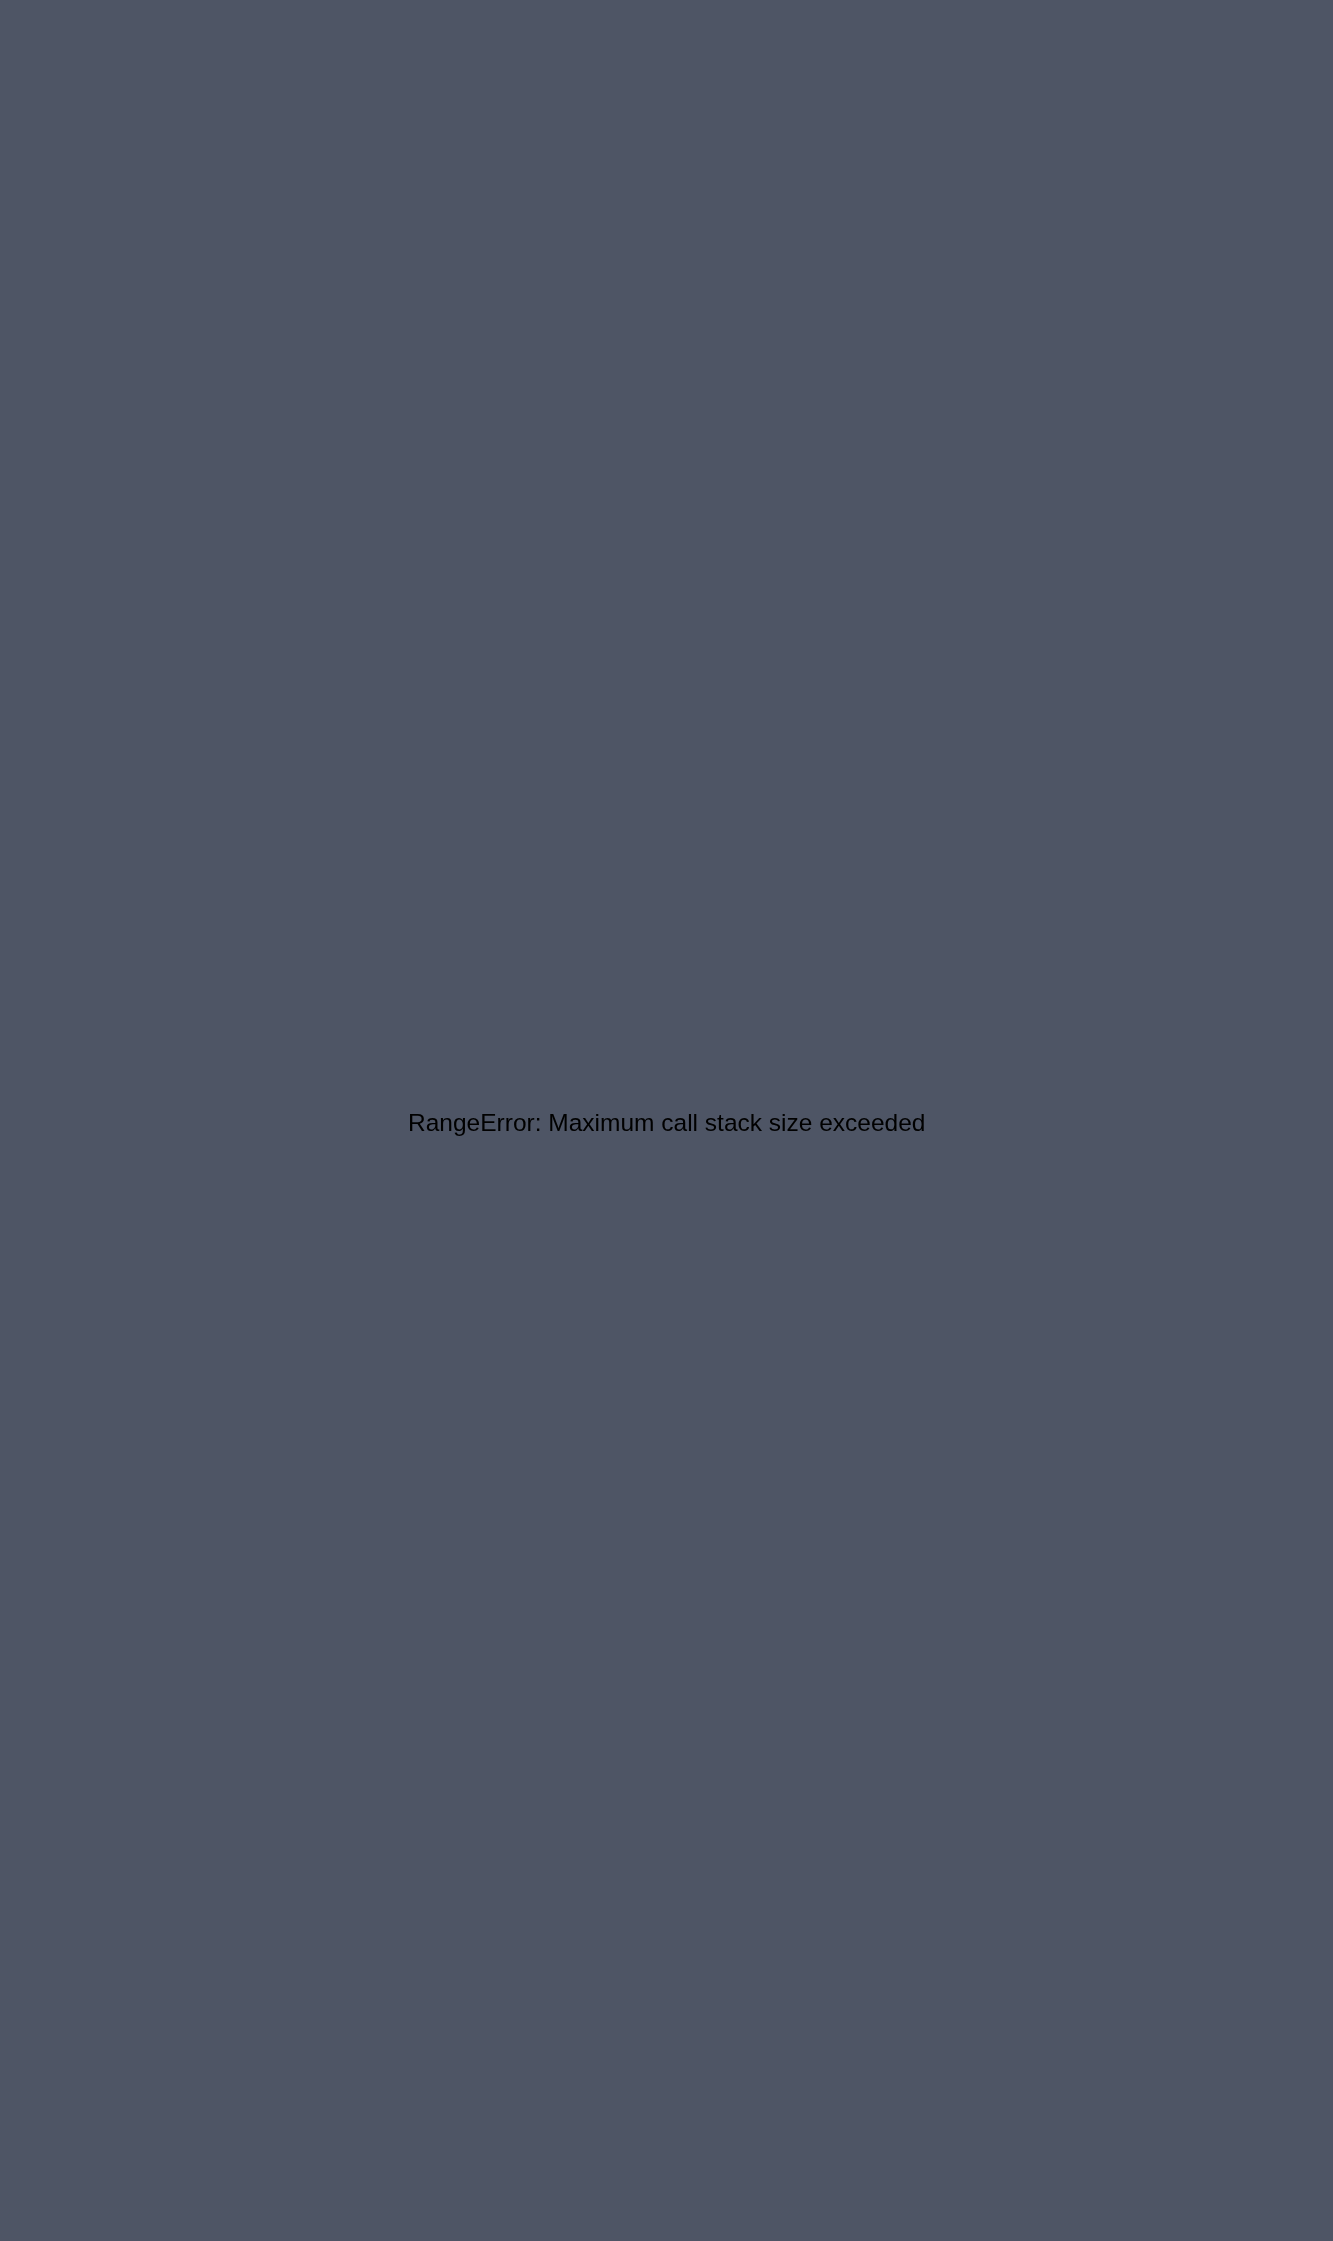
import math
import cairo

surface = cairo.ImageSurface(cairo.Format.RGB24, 1333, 2241)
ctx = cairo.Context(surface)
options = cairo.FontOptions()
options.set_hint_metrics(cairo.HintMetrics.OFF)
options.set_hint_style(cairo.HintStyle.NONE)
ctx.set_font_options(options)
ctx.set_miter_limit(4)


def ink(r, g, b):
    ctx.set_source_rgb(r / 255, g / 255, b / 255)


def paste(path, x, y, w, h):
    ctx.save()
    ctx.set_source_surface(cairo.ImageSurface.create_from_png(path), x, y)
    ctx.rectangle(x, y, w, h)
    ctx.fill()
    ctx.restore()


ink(78, 85, 101)
ctx.paint()
paste("pic1.png", 410, 1114, 514, 22)
surface.write_to_png("screenshot.png")
